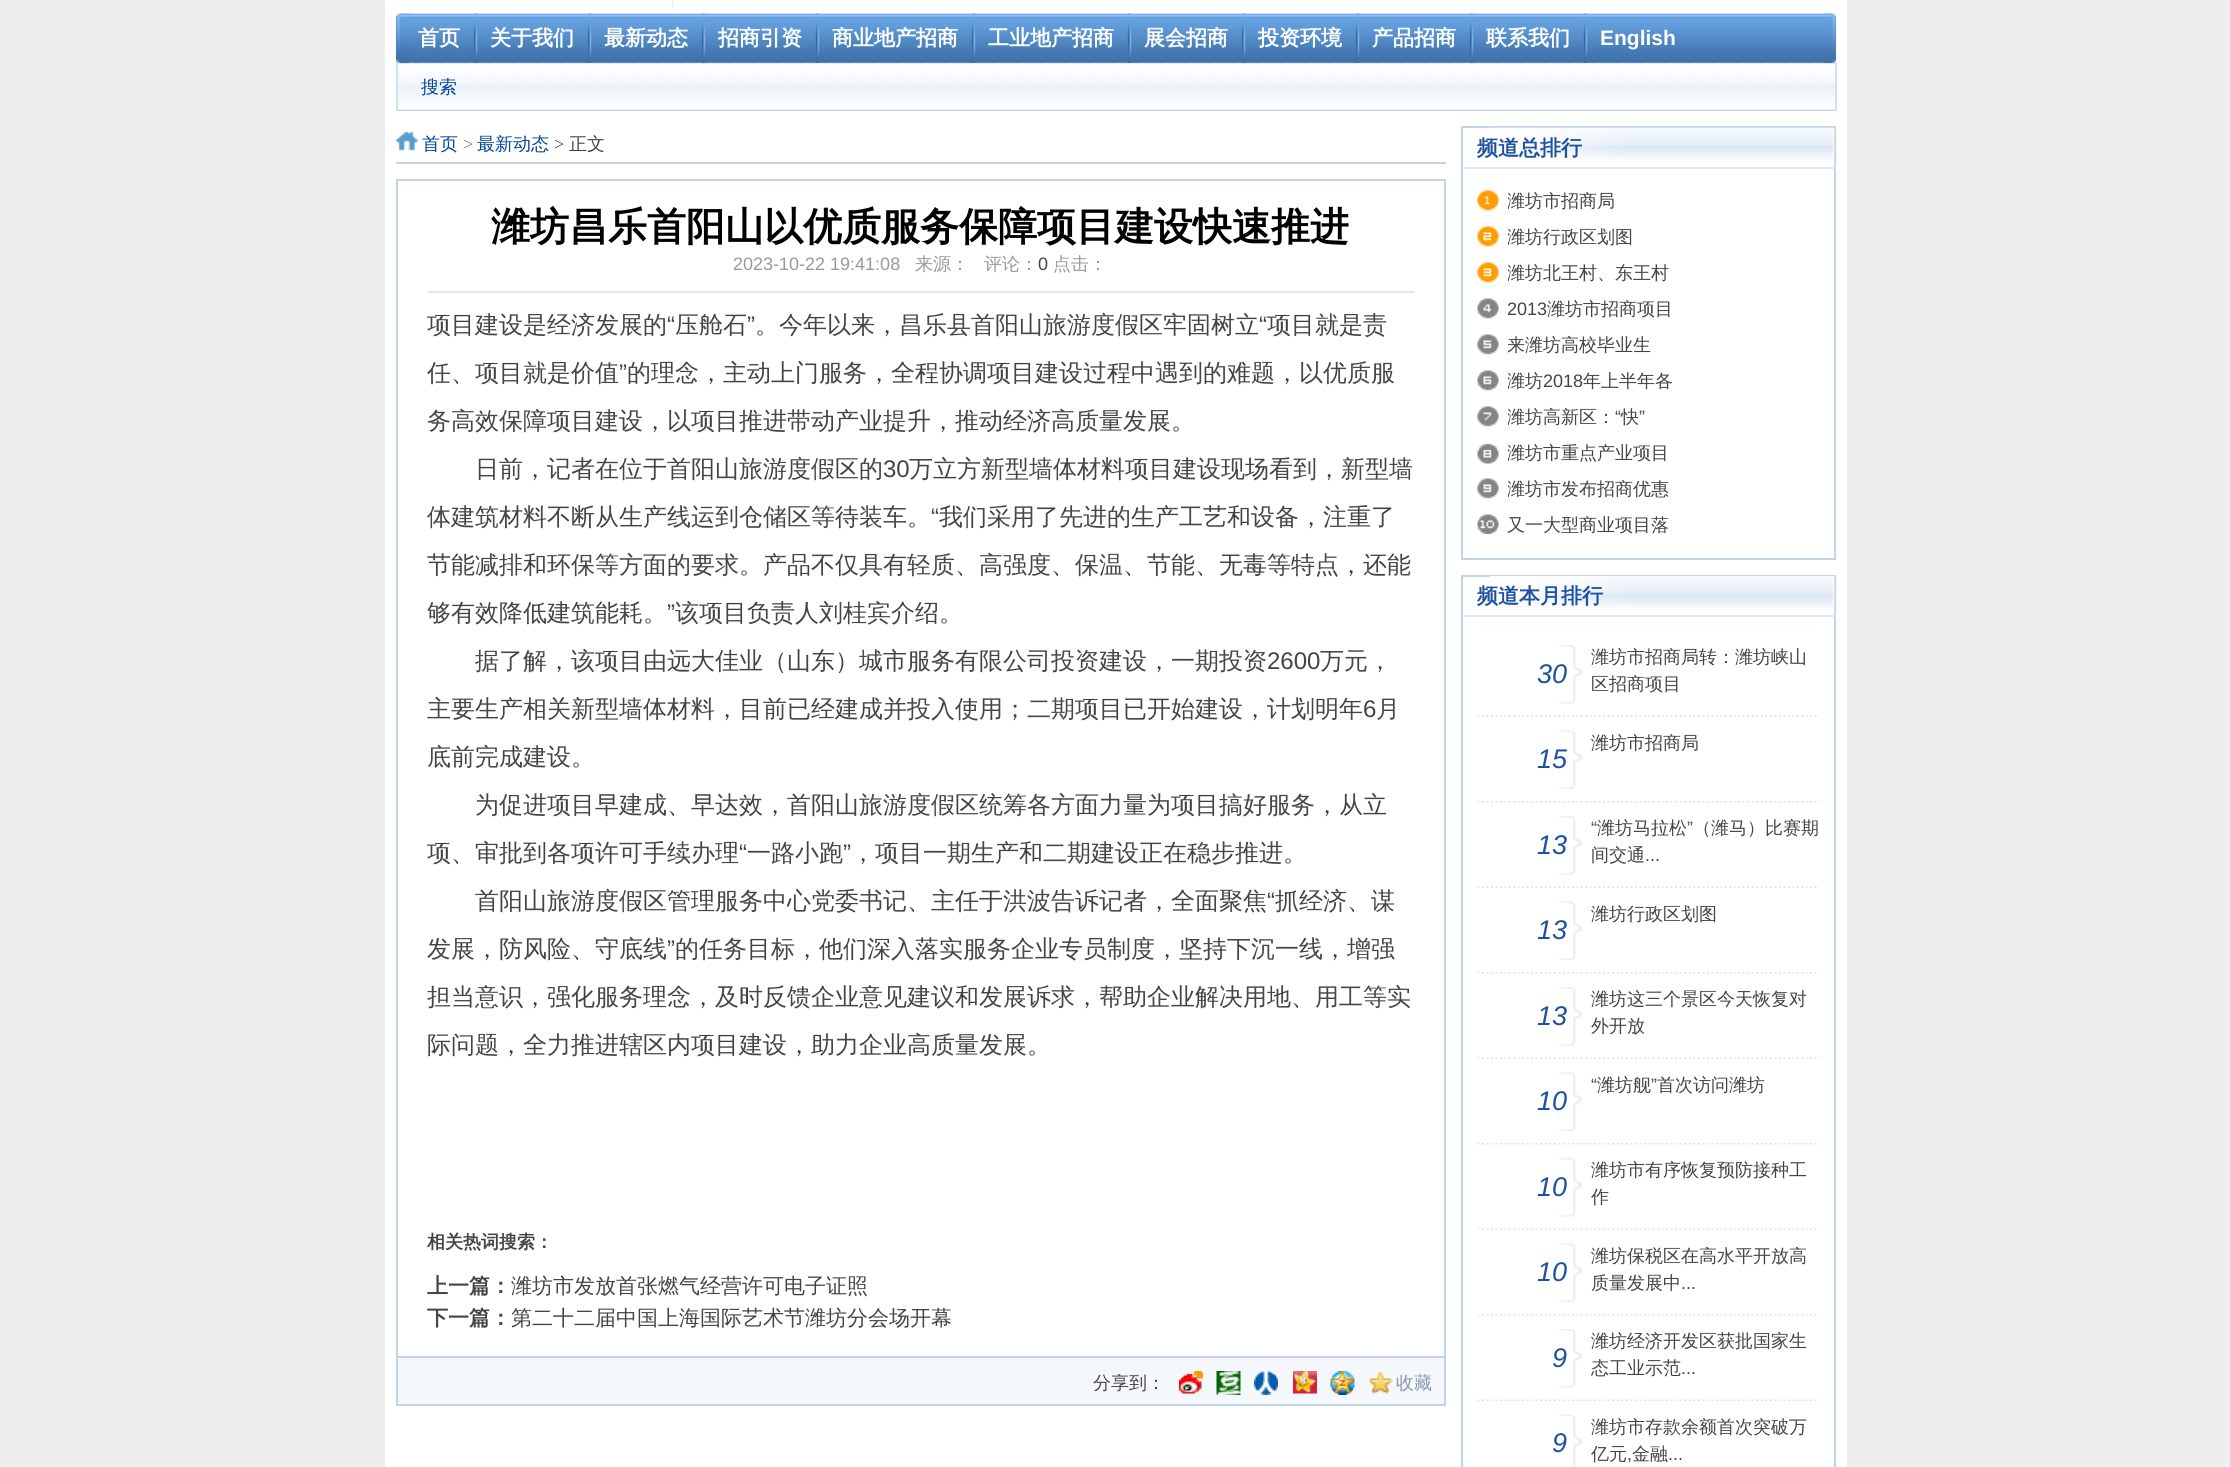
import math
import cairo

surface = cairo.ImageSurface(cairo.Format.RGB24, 2230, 1467)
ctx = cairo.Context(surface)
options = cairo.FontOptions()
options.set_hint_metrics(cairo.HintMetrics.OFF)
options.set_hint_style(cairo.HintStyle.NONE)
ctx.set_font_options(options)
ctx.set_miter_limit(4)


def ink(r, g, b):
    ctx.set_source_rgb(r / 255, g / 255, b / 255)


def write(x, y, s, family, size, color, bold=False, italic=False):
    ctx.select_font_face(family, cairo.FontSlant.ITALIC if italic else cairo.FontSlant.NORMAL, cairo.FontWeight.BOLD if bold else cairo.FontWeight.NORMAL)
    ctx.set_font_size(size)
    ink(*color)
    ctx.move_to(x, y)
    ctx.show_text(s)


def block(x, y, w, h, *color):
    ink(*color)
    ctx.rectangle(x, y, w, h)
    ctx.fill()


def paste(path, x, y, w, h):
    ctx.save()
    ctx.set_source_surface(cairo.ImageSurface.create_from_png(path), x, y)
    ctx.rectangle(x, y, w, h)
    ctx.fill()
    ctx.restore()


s1 = dict(family="WenQuanYi Zen Hei", size=21, color=(255, 255, 255), bold=True)
s2 = dict(family="Liberation Sans", size=21, color=(255, 255, 255), bold=True)
s3 = dict(family="WenQuanYi Zen Hei Medium", size=18, color=(0, 68, 153))
s4 = dict(family="Liberation Serif", size=18, color=(126, 126, 126))
s5 = dict(family="Liberation Serif", size=18, color=(68, 68, 68))
s6 = dict(family="WenQuanYi Zen Hei Medium", size=18, color=(68, 68, 68))
s7 = dict(family="WenQuanYi Zen Hei", size=39, color=(0, 0, 0), bold=True)
s8 = dict(family="Liberation Sans", size=18, color=(153, 153, 153))
s9 = dict(family="WenQuanYi Zen Hei Medium", size=18, color=(153, 153, 153))
s10 = dict(family="Liberation Sans", size=18, color=(68, 68, 68))
s11 = dict(family="WenQuanYi Zen Hei Medium", size=24, color=(68, 68, 68))
s12 = dict(family="Liberation Sans", size=24, color=(68, 68, 68))
s13 = dict(family="WenQuanYi Zen Hei", size=18, color=(68, 68, 68), bold=True)
s14 = dict(family="WenQuanYi Zen Hei", size=21, color=(68, 68, 68), bold=True)
s15 = dict(family="WenQuanYi Zen Hei Medium", size=21, color=(68, 68, 68))
s16 = dict(family="WenQuanYi Zen Hei Medium", size=18, color=(136, 150, 177))
s17 = dict(family="WenQuanYi Zen Hei", size=21, color=(30, 80, 162), bold=True)
s18 = dict(family="Liberation Sans", size=27, color=(30, 80, 162), italic=True)

ink(238, 238, 238)
ctx.paint()
block(385, 0, 1462, 1467, 255, 255, 255)
paste("pic1.png", 672, 0, 2, 9)
paste("pic2.png", 396, 13, 14, 50)
paste("pic3.png", 1824, 13, 12, 50)
paste("pic4.png", 403, 13, 1426, 50)
write(418, 45, "首页", **s1)
paste("pic5.png", 473, 13, 5, 50)
write(490, 45, "关于我们", **s1)
paste("pic6.png", 587, 13, 5, 50)
write(604, 45, "最新动态", **s1)
paste("pic7.png", 701, 13, 5, 50)
write(718, 45, "招商引资", **s1)
paste("pic8.png", 815, 13, 5, 50)
write(832, 45, "商业地产招商", **s1)
paste("pic8.png", 971, 13, 5, 50)
write(988, 45, "工业地产招商", **s1)
paste("pic9.png", 1127, 13, 5, 50)
write(1144, 45, "展会招商", **s1)
paste("pic10.png", 1241, 13, 5, 50)
write(1258, 45, "投资环境", **s1)
paste("pic10.png", 1355, 13, 5, 50)
write(1372, 45, "产品招商", **s1)
paste("pic10.png", 1469, 13, 5, 50)
write(1486, 45, "联系我们", **s1)
paste("pic11.png", 1583, 13, 5, 50)
write(1600, 45, "English", **s2)
paste("pic12.png", 398, 63, 1437, 48)
block(1835, 63, 2, 48, 210, 223, 237)
block(396, 63, 2, 48, 210, 223, 237)
write(421, 93, "搜索", **s3)
paste("pic13.png", 396, 131, 22, 20)
block(396, 162, 1050, 2, 195, 212, 231)
write(422, 150, "首页", **s3)
write(463, 150, ">", **s4)
write(477, 150, "最新动态", **s3)
write(554, 150, ">", **s5)
write(569, 150, "正文", **s6)
ctx.rectangle(397, 180, 1048, 1177)
ink(195, 212, 231)
ctx.stroke()
block(428, 291, 987, 2, 229, 229, 229)
write(491, 240, "潍坊昌乐首阳山以优质服务保障项目建设快速推进", **s7)
write(733, 270, "2023-10-22 19:41:08", **s8)
write(915, 270, "来源：", **s9)
write(984, 270, "评论：", **s9)
write(1038, 270, "0", **s10)
write(1053, 270, "点击：", **s9)
write(427, 333, "项目建设是经济发展的", **s11)
write(667, 333, "“", **s12)
write(675, 333, "压舱石", **s11)
write(747, 333, "”", **s12)
write(755, 333, "。今年以来，昌乐县首阳山旅游度假区牢固树立", **s11)
write(1259, 333, "“", **s12)
write(1267, 333, "项目就是责", **s11)
write(427, 381, "任、项目就是价值", **s11)
write(619, 381, "”", **s12)
write(627, 381, "的理念，主动上门服务，全程协调项目建设过程中遇到的难题，以优质服", **s11)
write(427, 429, "务高效保障项目建设，以项目推进带动产业提升，推动经济高质量发展。", **s11)
write(475, 477, "日前，记者在位于首阳山旅游度假区的", **s11)
write(883, 477, "30", **s12)
write(909, 477, "万立方新型墙体材料项目建设现场看到，新型墙", **s11)
write(427, 525, "体建筑材料不断从生产线运到仓储区等待装车。", **s11)
write(931, 525, "“", **s12)
write(939, 525, "我们采用了先进的生产工艺和设备，注重了", **s11)
write(427, 573, "节能减排和环保等方面的要求。产品不仅具有轻质、高强度、保温、节能、无毒等特点，还能", **s11)
write(427, 621, "够有效降低建筑能耗。", **s11)
write(667, 621, "”", **s12)
write(675, 621, "该项目负责人刘桂宾介绍。", **s11)
write(475, 669, "据了解，该项目由远大佳业（山东）城市服务有限公司投资建设，一期投资", **s11)
write(1267, 669, "2600", **s12)
write(1320, 669, "万元，", **s11)
write(427, 717, "主要生产相关新型墙体材料，目前已经建成并投入使用；二期项目已开始建设，计划明年", **s11)
write(1363, 717, "6", **s12)
write(1376, 717, "月", **s11)
write(427, 765, "底前完成建设。", **s11)
write(475, 813, "为促进项目早建成、早达效，首阳山旅游度假区统筹各方面力量为项目搞好服务，从立", **s11)
write(427, 861, "项、审批到各项许可手续办理", **s11)
write(739, 861, "“", **s12)
write(747, 861, "一路小跑", **s11)
write(843, 861, "”", **s12)
write(851, 861, "，项目一期生产和二期建设正在稳步推进。", **s11)
write(475, 909, "首阳山旅游度假区管理服务中心党委书记、主任于洪波告诉记者，全面聚焦", **s11)
write(1267, 909, "“", **s12)
write(1275, 909, "抓经济、谋", **s11)
write(427, 957, "发展，防风险、守底线", **s11)
write(667, 957, "”", **s12)
write(675, 957, "的任务目标，他们深入落实服务企业专员制度，坚持下沉一线，增强", **s11)
write(427, 1005, "担当意识，强化服务理念，及时反馈企业意见建议和发展诉求，帮助企业解决用地、用工等实", **s11)
write(427, 1053, "际问题，全力推进辖区内项目建设，助力企业高质量发展。", **s11)
write(427, 1248, "相关热词搜索：", **s13)
write(427, 1293, "上一篇：", **s14)
write(511, 1293, "潍坊市发放首张燃气经营许可电子证照", **s15)
write(427, 1325, "下一篇：", **s14)
write(511, 1325, "第二十二届中国上海国际艺术节潍坊分会场开幕", **s15)
ink(244, 248, 253)
ctx.rectangle(397, 1357, 1048, 48)
ctx.fill_preserve()
ink(195, 212, 231)
ctx.stroke()
write(1093, 1389, "分享到：", **s6)
paste("pic14.png", 1179, 1371, 24, 23)
paste("pic15.png", 1216, 1371, 25, 24)
paste("pic16.png", 1254, 1371, 24, 24)
paste("pic17.png", 1293, 1371, 24, 23)
paste("pic18.png", 1330, 1371, 25, 24)
paste("pic19.png", 1369, 1371, 24, 23)
write(1396, 1389, "收藏", **s16)
ctx.rectangle(1462, 127, 373, 432)
ink(195, 212, 231)
ctx.stroke()
paste("pic20.png", 1489, 127, 346, 40)
block(1463, 167, 372, 2, 220, 231, 243)
write(1477, 155, "频道总排行", **s17)
paste("pic21.png", 1477, 190, 22, 344)
ctx.save()
ctx.rectangle(1508, 183, 312, 36)
ctx.clip()
write(1507, 207, "潍坊市招商局", **s6)
ctx.restore()
ctx.save()
ctx.rectangle(1508, 219, 312, 36)
ctx.clip()
write(1507, 243, "潍坊行政区划图", **s6)
ctx.restore()
ctx.save()
ctx.rectangle(1508, 255, 312, 36)
ctx.clip()
write(1507, 279, "潍坊北王村、东王村", **s6)
ctx.restore()
ctx.save()
ctx.rectangle(1508, 291, 312, 36)
ctx.clip()
write(1507, 315, "2013", **s10)
ctx.restore()
write(1547, 315, "潍坊市招商项目", **s6)
ctx.save()
ctx.rectangle(1508, 327, 312, 36)
ctx.clip()
write(1507, 351, "来潍坊高校毕业生", **s6)
ctx.restore()
ctx.save()
ctx.rectangle(1508, 363, 312, 36)
ctx.clip()
write(1507, 387, "潍坊", **s6)
ctx.restore()
write(1543, 387, "2018", **s10)
write(1583, 387, "年上半年各", **s6)
ctx.save()
ctx.rectangle(1508, 399, 312, 36)
ctx.clip()
write(1507, 423, "潍坊高新区：", **s6)
ctx.restore()
write(1615, 423, "“", **s10)
write(1621, 423, "快", **s6)
write(1639, 423, "”", **s10)
ctx.save()
ctx.rectangle(1508, 435, 312, 36)
ctx.clip()
write(1507, 459, "潍坊市重点产业项目", **s6)
ctx.restore()
ctx.save()
ctx.rectangle(1508, 471, 312, 36)
ctx.clip()
write(1507, 495, "潍坊市发布招商优惠", **s6)
ctx.restore()
write(1507, 531, "又一大型商业项目落", **s6)
ctx.rectangle(1462, 576, 373, 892)
ink(195, 212, 231)
ctx.stroke()
paste("pic22.png", 1489, 576, 346, 39)
block(1463, 615, 372, 2, 220, 231, 243)
write(1477, 603, "频道本月排行", **s17)
paste("pic23.png", 1478, 631, 339, 1)
paste("pic24.png", 1558, 645, 25, 59)
write(1537, 683, "30", **s18)
write(1591, 663, "潍坊市招商局转：潍坊峡山", **s6)
write(1591, 690, "区招商项目", **s6)
paste("pic25.png", 1477, 715, 343, 2)
write(1591, 749, "潍坊市招商局", **s6)
paste("pic26.png", 1558, 730, 25, 59)
write(1537, 768, "15", **s18)
paste("pic27.png", 1477, 801, 343, 2)
paste("pic24.png", 1558, 816, 25, 59)
write(1537, 854, "13", **s18)
write(1591, 834, "“", **s10)
write(1597, 834, "潍坊马拉松", **s6)
write(1687, 834, "”", **s10)
write(1693, 834, "（潍马）比赛期", **s6)
write(1591, 861, "间交通", **s6)
write(1645, 861, "...", **s10)
paste("pic25.png", 1477, 886, 343, 2)
write(1591, 920, "潍坊行政区划图", **s6)
paste("pic26.png", 1558, 901, 25, 59)
write(1537, 939, "13", **s18)
paste("pic27.png", 1477, 972, 343, 2)
paste("pic24.png", 1558, 987, 25, 59)
write(1537, 1025, "13", **s18)
write(1591, 1005, "潍坊这三个景区今天恢复对", **s6)
write(1591, 1032, "外开放", **s6)
paste("pic25.png", 1477, 1057, 343, 2)
write(1591, 1091, "“", **s10)
write(1597, 1091, "潍坊舰", **s6)
write(1651, 1091, "”", **s10)
write(1657, 1091, "首次访问潍坊", **s6)
paste("pic26.png", 1558, 1072, 25, 59)
write(1537, 1110, "10", **s18)
paste("pic27.png", 1477, 1143, 343, 2)
paste("pic24.png", 1558, 1158, 25, 59)
write(1537, 1196, "10", **s18)
write(1591, 1176, "潍坊市有序恢复预防接种工", **s6)
write(1591, 1203, "作", **s6)
paste("pic25.png", 1477, 1228, 343, 2)
paste("pic26.png", 1558, 1243, 25, 59)
write(1537, 1281, "10", **s18)
write(1591, 1262, "潍坊保税区在高水平开放高", **s6)
write(1591, 1289, "质量发展中", **s6)
write(1681, 1289, "...", **s10)
paste("pic27.png", 1477, 1314, 343, 2)
paste("pic24.png", 1558, 1329, 25, 59)
write(1552, 1367, "9", **s18)
write(1591, 1347, "潍坊经济开发区获批国家生", **s6)
write(1591, 1374, "态工业示范", **s6)
write(1681, 1374, "...", **s10)
paste("pic25.png", 1477, 1399, 343, 2)
paste("pic28.png", 1558, 1414, 25, 53)
write(1552, 1452, "9", **s18)
write(1591, 1433, "潍坊市存款余额首次突破万", **s6)
write(1591, 1460, "亿元", **s6)
write(1627, 1460, ",", **s10)
write(1632, 1460, "金融", **s6)
write(1668, 1460, "...", **s10)
surface.write_to_png("screenshot.png")
